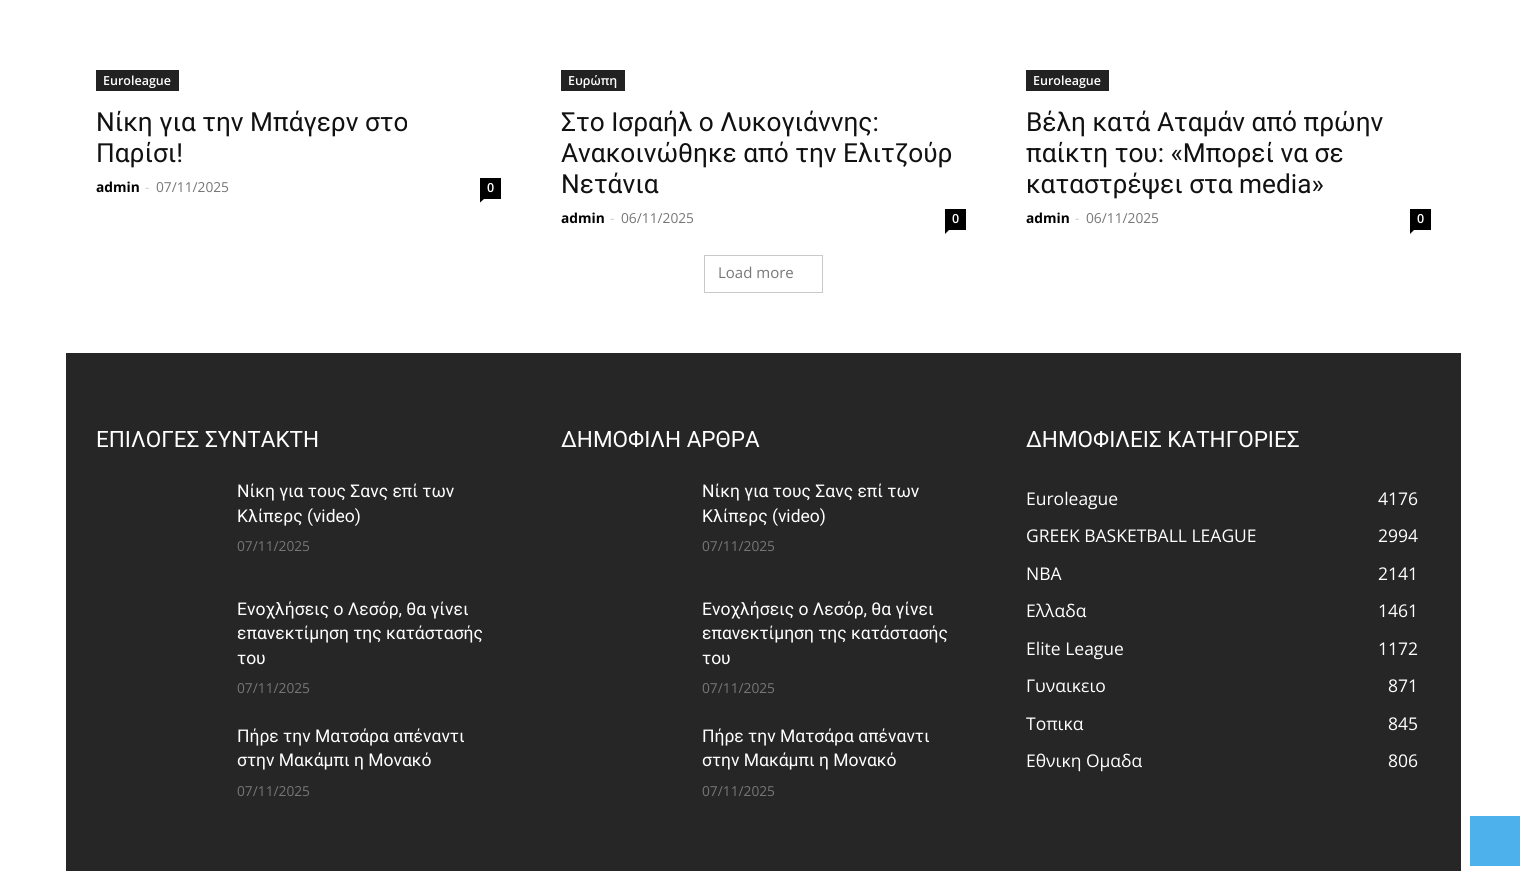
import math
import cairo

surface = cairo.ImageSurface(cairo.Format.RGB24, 1526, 871)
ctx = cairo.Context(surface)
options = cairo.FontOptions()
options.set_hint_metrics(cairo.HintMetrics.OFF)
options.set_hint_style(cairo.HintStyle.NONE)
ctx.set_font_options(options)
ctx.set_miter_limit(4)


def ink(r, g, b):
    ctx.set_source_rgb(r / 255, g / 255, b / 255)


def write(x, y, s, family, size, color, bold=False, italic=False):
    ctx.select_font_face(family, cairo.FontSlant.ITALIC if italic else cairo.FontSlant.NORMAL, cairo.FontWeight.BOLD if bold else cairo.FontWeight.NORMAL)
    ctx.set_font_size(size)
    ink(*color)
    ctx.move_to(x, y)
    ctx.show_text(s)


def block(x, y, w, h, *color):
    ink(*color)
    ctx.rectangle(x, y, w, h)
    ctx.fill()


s1 = dict(family="Open Sans SemiBold", size=12.5, color=(255, 255, 255))
s2 = dict(family="Roboto", size=26.25, color=(17, 17, 17))
s3 = dict(family="Open Sans", size=13.75, color=(0, 0, 0), bold=True)
s4 = dict(family="Open Sans", size=13.75, color=(204, 204, 204))
s5 = dict(family="Open Sans", size=13.75, color=(118, 118, 118))
s6 = dict(family="Open Sans", size=15, color=(118, 118, 118))
s7 = dict(family="Roboto", size=22.5, color=(255, 255, 255))
s8 = dict(family="Roboto", size=17.5, color=(255, 255, 255))
s9 = dict(family="Open Sans", size=17.5, color=(255, 255, 255))

ink(255, 255, 255)
ctx.paint()
block(96, 70, 83, 21, 34, 34, 34)
write(103, 85, "Euroleague", **s1)
write(96, 131, "Νίκη για την Μπάγερν στο", **s2)
write(96, 162, "Παρίσι!", **s2)
write(96, 192, "admin", **s3)
write(145, 192, "-", **s4)
write(156, 192, "07/11/2025", **s5)
block(480, 178, 21, 21, 0, 0, 0)
write(487, 192, "0", **s1)
ink(0, 0, 0)
ctx.new_path()
ctx.move_to(480, 199)
ctx.line_to(484, 199)
ctx.line_to(480, 202.5)
ctx.close_path()
ctx.fill()
block(561, 70, 64, 21, 34, 34, 34)
write(568, 85, "Ευρώπη", **s1)
write(561, 131, "Στο Ισραήλ ο Λυκογιάννης:", **s2)
write(561, 162, "Ανακοινώθηκε από την Ελιτζούρ", **s2)
write(561, 193, "Νετάνια", **s2)
write(561, 223, "admin", **s3)
write(610, 223, "-", **s4)
write(621, 223, "06/11/2025", **s5)
block(945, 209, 21, 21, 0, 0, 0)
write(952, 223, "0", **s1)
ink(0, 0, 0)
ctx.new_path()
ctx.move_to(945, 230)
ctx.line_to(949, 230)
ctx.line_to(945, 234)
ctx.close_path()
ctx.fill()
block(1026, 70, 83, 21, 34, 34, 34)
write(1033, 85, "Euroleague", **s1)
write(1026, 131, "Βέλη κατά Αταμάν από πρώην", **s2)
write(1026, 162, "παίκτη του: «Μπορεί να σε", **s2)
write(1026, 193, "καταστρέψει στα media»", **s2)
write(1026, 223, "admin", **s3)
write(1075, 223, "-", **s4)
write(1086, 223, "06/11/2025", **s5)
block(1410, 209, 21, 21, 0, 0, 0)
write(1417, 223, "0", **s1)
ink(0, 0, 0)
ctx.new_path()
ctx.move_to(1410, 230)
ctx.line_to(1414, 230)
ctx.line_to(1410, 234)
ctx.close_path()
ctx.fill()
ctx.rectangle(704.5, 255.5, 118, 37)
ink(201, 201, 201)
ctx.set_line_width(1)
ctx.stroke()
write(718, 278, "Load more", **s6)
block(66, 353, 1395, 518, 38, 38, 38)
write(96, 447, "ΕΠΙΛΟΓΕΣ ΣΥΝΤΑΚΤΗ", **s7)
write(237, 497, "Νίκη για τους Σανς επί των", **s8)
write(237, 522, "Κλίπερς (video)", **s8)
write(237, 551, "07/11/2025", **s5)
write(237, 615, "Ενοχλήσεις ο Λεσόρ, θα γίνει", **s8)
write(237, 639, "επανεκτίμηση της κατάστασής", **s8)
write(237, 664, "του", **s8)
write(237, 693, "07/11/2025", **s5)
write(237, 742, "Πήρε την Ματσάρα απέναντι", **s8)
write(237, 766, "στην Μακάμπι η Μονακό", **s8)
write(237, 796, "07/11/2025", **s5)
write(561, 447, "ΔΗΜΟΦΙΛΗ ΑΡΘΡΑ", **s7)
write(702, 497, "Νίκη για τους Σανς επί των", **s8)
write(702, 522, "Κλίπερς (video)", **s8)
write(702, 551, "07/11/2025", **s5)
write(702, 615, "Ενοχλήσεις ο Λεσόρ, θα γίνει", **s8)
write(702, 639, "επανεκτίμηση της κατάστασής", **s8)
write(702, 664, "του", **s8)
write(702, 693, "07/11/2025", **s5)
write(702, 742, "Πήρε την Ματσάρα απέναντι", **s8)
write(702, 766, "στην Μακάμπι η Μονακό", **s8)
write(702, 796, "07/11/2025", **s5)
write(1026, 447, "ΔΗΜΟΦΙΛΕΙΣ ΚΑΤΗΓΟΡΙΕΣ", **s7)
write(1026, 505, "Euroleague", **s9)
write(1378, 505, "4176", **s9)
write(1026, 542, "GREEK BASKETBALL LEAGUE", **s9)
write(1378, 542, "2994", **s9)
write(1026, 580, "NBA", **s9)
write(1378, 580, "2141", **s9)
write(1026, 617, "Ελλαδα", **s9)
write(1378, 617, "1461", **s9)
write(1026, 655, "Elite League", **s9)
write(1378, 655, "1172", **s9)
write(1026, 692, "Γυναικειο", **s9)
write(1388, 692, "871", **s9)
write(1026, 730, "Τοπικα", **s9)
write(1388, 730, "845", **s9)
write(1026, 767, "Εθνικη Ομαδα", **s9)
write(1388, 767, "806", **s9)
block(1470, 816, 50, 50, 77, 178, 236)
surface.write_to_png("screenshot.png")
